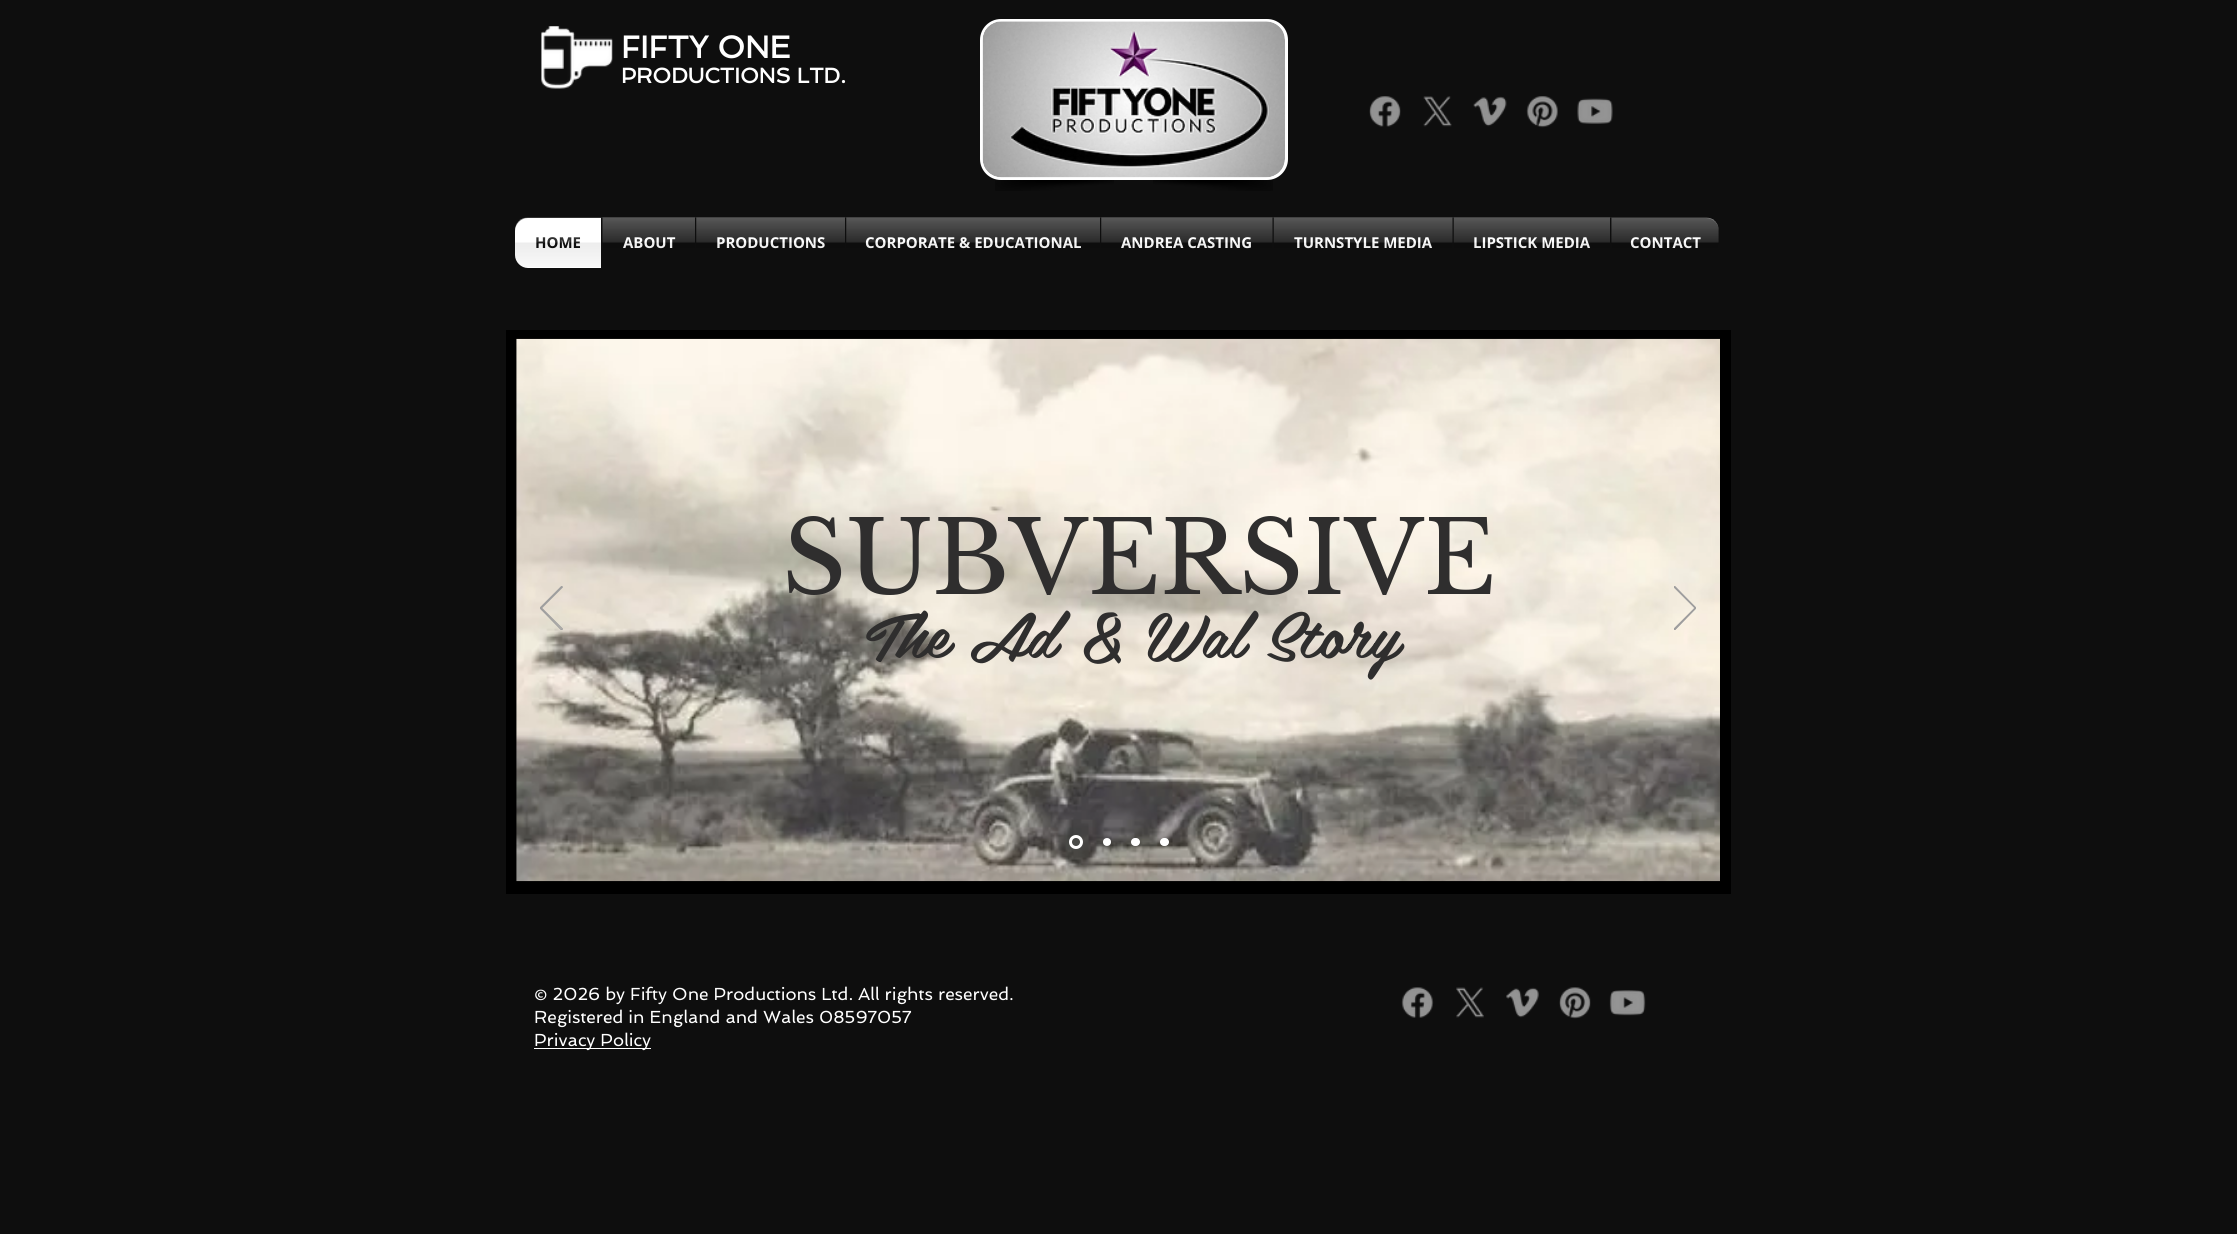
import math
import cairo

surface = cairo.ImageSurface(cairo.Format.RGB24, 2237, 1234)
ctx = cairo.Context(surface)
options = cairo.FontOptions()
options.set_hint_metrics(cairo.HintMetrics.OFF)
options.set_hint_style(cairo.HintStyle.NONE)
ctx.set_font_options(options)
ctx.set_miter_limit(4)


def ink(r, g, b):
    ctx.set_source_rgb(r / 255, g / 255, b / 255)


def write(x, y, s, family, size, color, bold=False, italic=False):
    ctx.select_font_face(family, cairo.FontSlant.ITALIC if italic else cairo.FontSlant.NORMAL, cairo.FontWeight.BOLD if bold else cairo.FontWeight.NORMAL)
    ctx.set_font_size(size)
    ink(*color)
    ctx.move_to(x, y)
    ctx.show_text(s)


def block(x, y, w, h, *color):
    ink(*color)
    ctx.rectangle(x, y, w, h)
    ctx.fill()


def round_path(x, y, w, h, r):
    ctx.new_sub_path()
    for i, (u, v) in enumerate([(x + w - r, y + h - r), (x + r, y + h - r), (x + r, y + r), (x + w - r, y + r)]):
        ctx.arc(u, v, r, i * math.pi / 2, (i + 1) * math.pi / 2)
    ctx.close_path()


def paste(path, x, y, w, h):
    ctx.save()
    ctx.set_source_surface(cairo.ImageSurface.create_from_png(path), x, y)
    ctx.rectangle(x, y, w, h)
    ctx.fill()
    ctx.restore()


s1 = dict(family="Spinnaker", size=31.25, color=(255, 255, 255), bold=True)
s2 = dict(family="Spinnaker", size=21.25, color=(255, 255, 255), bold=True)
s3 = dict(family="Open Sans", size=15, color=(14, 14, 14), bold=True)
s4 = dict(family="Open Sans", size=15, color=(255, 255, 255), bold=True)
s5 = dict(family="Libre Baskerville", size=100, color=(47, 46, 46))
s6 = dict(family="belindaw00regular", size=63.75, color=(47, 46, 46))
s7 = dict(family="Spinnaker", size=17.5, color=(255, 255, 255))

ink(14, 14, 14)
ctx.paint()
paste("pic1.png", 541, 26, 72, 63)
write(621, 58, "FIFTY ONE", **s1)
write(621, 83, "PRODUCTIONS LTD.", **s2)
round_path(981.5, 20.5, 305, 158, 19.5)
ctx.fill_preserve()
ctx.set_line_width(3)
ctx.stroke()
paste("pic2.png", 982, 21, 303, 157)
paste("pic3.png", 995, 180, 119, 11)
paste("pic4.png", 1153, 180, 120, 11)
paste("pic5.png", 1369, 96, 32, 31)
paste("pic6.png", 1423, 96, 29, 31)
paste("pic7.png", 1473, 96, 34, 31)
paste("pic8.png", 1526, 96, 32, 32)
paste("pic9.png", 1577, 98, 36, 26)
paste("pic10.png", 515, 217, 1204, 14)
ctx.new_path()
ctx.move_to(528, 218)
ctx.line_to(601, 218)
ctx.line_to(601, 268)
ctx.line_to(528, 268)
ctx.curve_to(521, 268, 515, 262, 515, 255)
ctx.line_to(515, 231)
ctx.curve_to(515, 224, 521, 218, 528, 218)
ctx.close_path()
ctx.fill()
write(535, 248, "HOME", **s3)
paste("pic11.png", 515, 217, 86, 50)
block(601, 218, 1009, 13, 14, 14, 14)
write(623, 248, "ABOUT", **s4)
paste("pic12.png", 602, 217, 93, 31)
write(716, 248, "PRODUCTIONS", **s4)
paste("pic13.png", 696, 217, 149, 31)
write(865, 248, "CORPORATE & EDUCATIONAL", **s4)
paste("pic14.png", 846, 217, 254, 31)
write(1121, 248, "ANDREA CASTING", **s4)
paste("pic15.png", 1101, 217, 172, 31)
write(1294, 248, "TURNSTYLE MEDIA", **s4)
paste("pic16.png", 1273, 217, 180, 31)
write(1473, 248, "LIPSTICK MEDIA", **s4)
paste("pic17.png", 1453, 217, 157, 31)
ink(14, 14, 14)
ctx.new_path()
ctx.move_to(1610, 218)
ctx.line_to(1706, 218)
ctx.curve_to(1713, 218, 1719, 224, 1719, 231)
ctx.line_to(1719, 255)
ctx.curve_to(1719, 262, 1713, 268, 1706, 268)
ctx.line_to(1610, 268)
ctx.close_path()
ctx.fill()
write(1630, 248, "CONTACT", **s4)
paste("pic18.png", 1611, 217, 108, 31)
ctx.rectangle(512.5, 336.5, 1212, 551)
ink(0, 0, 0)
ctx.set_line_width(13)
ctx.stroke()
paste("pic19.png", 516, 338, 1204, 544)
ctx.save()
ctx.rectangle(540, 586, 23, 44)
ctx.clip()
ctx.new_path()
ctx.move_to(561.5, 630)
ctx.line_to(540, 608)
ctx.line_to(561.5, 586.5)
ctx.line_to(562.5, 587)
ctx.line_to(541.5, 608)
ctx.line_to(562.5, 629)
ctx.close_path()
ink(158, 158, 158)
ctx.set_line_width(1.1)
ctx.stroke()
ctx.restore()
write(782, 594, "SUBVERSIVE", **s5)
write(866, 658, "The Ad & Wal Story", **s6)
ink(158, 158, 158)
ctx.new_path()
ctx.move_to(1675, 630)
ctx.line_to(1696, 608)
ctx.line_to(1675, 586)
ctx.line_to(1674, 587)
ctx.line_to(1695, 608)
ctx.line_to(1674, 629)
ctx.close_path()
ctx.fill()
ctx.save()
ctx.rectangle(1674, 586, 22, 44)
ctx.clip()
ctx.new_path()
ctx.move_to(1674.5, 630)
ctx.line_to(1696, 608)
ctx.line_to(1674.5, 586.5)
ctx.line_to(1674, 587)
ctx.line_to(1695, 608)
ctx.line_to(1674, 629)
ctx.close_path()
ctx.set_line_width(1.1)
ctx.stroke()
ctx.restore()
ctx.arc(1076, 842, 5.5, 0, 2 * math.pi)
ink(255, 255, 255)
ctx.set_line_width(3)
ctx.stroke()
ctx.arc(1107, 842, 4, 0, 2 * math.pi)
ctx.fill()
round_path(1131, 838, 9, 8, 4)
ctx.fill()
round_path(1160, 838, 9, 8, 4)
ctx.fill()
write(534, 1000, "© 2026 by Fifty One Productions Ltd. All rights reserved.", **s7)
write(534, 1023, "Registered in England and Wales 08597057", **s7)
block(534, 1048, 117, 1, 255, 255, 255)
write(534, 1046, "Privacy Policy", **s7)
paste("pic20.png", 1401, 987, 33, 31)
paste("pic21.png", 1456, 987, 28, 31)
paste("pic22.png", 1506, 987, 33, 31)
paste("pic23.png", 1559, 987, 32, 32)
paste("pic24.png", 1609, 990, 37, 26)
surface.write_to_png("screenshot.png")
